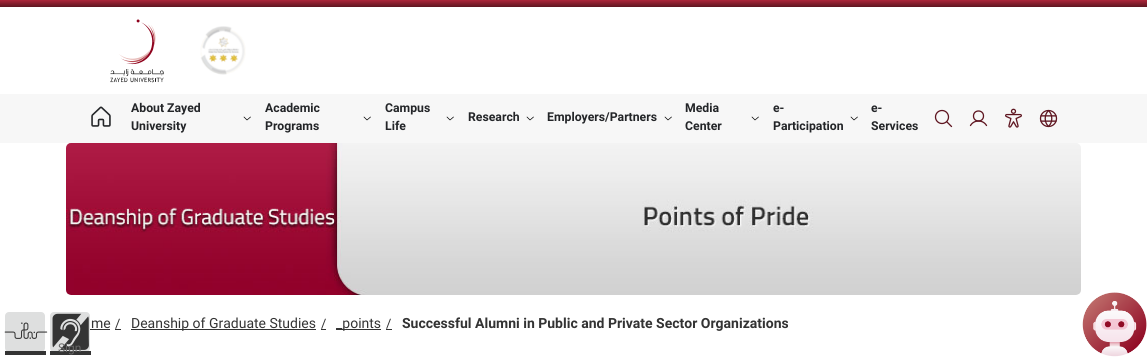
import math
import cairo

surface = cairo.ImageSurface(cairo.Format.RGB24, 1147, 357)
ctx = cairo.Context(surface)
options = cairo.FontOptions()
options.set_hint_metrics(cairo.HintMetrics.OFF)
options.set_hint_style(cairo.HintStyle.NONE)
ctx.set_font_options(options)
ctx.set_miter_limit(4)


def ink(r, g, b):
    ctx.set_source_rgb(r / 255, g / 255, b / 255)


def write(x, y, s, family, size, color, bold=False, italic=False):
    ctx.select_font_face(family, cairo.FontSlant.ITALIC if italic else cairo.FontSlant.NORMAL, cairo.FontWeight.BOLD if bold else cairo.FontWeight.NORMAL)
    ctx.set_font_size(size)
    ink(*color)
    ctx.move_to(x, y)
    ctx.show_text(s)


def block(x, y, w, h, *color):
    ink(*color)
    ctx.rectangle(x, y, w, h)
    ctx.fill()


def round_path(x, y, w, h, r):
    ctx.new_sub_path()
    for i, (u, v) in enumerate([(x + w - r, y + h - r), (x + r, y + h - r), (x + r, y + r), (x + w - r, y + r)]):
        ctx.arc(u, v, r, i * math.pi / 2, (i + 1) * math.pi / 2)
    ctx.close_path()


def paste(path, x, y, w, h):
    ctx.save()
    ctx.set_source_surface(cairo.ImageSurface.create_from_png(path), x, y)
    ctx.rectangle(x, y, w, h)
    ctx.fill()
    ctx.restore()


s1 = dict(family="Roboto", size=12.25, color=(35, 37, 40), bold=True)
s2 = dict(family="Roboto", size=14, color=(51, 51, 51))
s3 = dict(family="Roboto", size=13, color=(51, 51, 51))
s4 = dict(family="Roboto", size=14, color=(51, 51, 51), bold=True)
s5 = dict(family="Roboto", size=12, color=(102, 102, 102))

ink(255, 255, 255)
ctx.paint()
gradient = cairo.LinearGradient(574, 0, 574, 7)
gradient.add_color_stop_rgba(0, 0.678, 0.149, 0.227, 1)
gradient.add_color_stop_rgba(1, 0.369, 0.082, 0.125, 1)
ctx.set_source(gradient)
ctx.rectangle(0, 0, 1147, 7)
ctx.fill()
paste("pic1.png", 110, 19, 54, 64)
paste("pic2.png", 200, 26, 46, 49)
block(0, 94, 1147, 49, 247, 247, 247)
paste("pic3.png", 91, 106, 20, 21)
write(131, 112, "About Zayed", **s1)
write(131, 130, "University", **s1)
ctx.new_path()
ctx.move_to(250.5, 117)
ctx.line_to(247, 120)
ctx.line_to(244, 117)
ink(0, 0, 0)
ctx.set_line_width(0.7)
ctx.set_line_cap(cairo.LineCap.ROUND)
ctx.set_line_join(cairo.LineJoin.ROUND)
ctx.stroke()
write(265, 112, "Academic", **s1)
write(265, 130, "Programs", **s1)
ctx.new_path()
ctx.move_to(370.5, 117)
ctx.line_to(367, 120)
ctx.line_to(364, 117)
ink(0, 0, 0)
ctx.stroke()
write(385, 112, "Campus", **s1)
write(385, 130, "Life", **s1)
ctx.new_path()
ctx.move_to(453.5, 117)
ctx.line_to(450, 120)
ctx.line_to(447, 117)
ink(0, 0, 0)
ctx.stroke()
write(468, 121, "Research", **s1)
ctx.new_path()
ctx.move_to(533.5, 117)
ctx.line_to(530, 120)
ctx.line_to(527, 117)
ink(0, 0, 0)
ctx.stroke()
write(547, 121, "Employers/Partners", **s1)
ctx.new_path()
ctx.move_to(671.5, 117)
ctx.line_to(668, 120)
ctx.line_to(665, 117)
ink(0, 0, 0)
ctx.stroke()
write(685, 112, "Media", **s1)
write(685, 130, "Center", **s1)
ctx.new_path()
ctx.move_to(758.5, 117)
ctx.line_to(755, 120)
ctx.line_to(752, 117)
ink(0, 0, 0)
ctx.stroke()
write(773, 112, "e-", **s1)
write(773, 130, "Participation", **s1)
ctx.new_path()
ctx.move_to(857.5, 117)
ctx.line_to(854, 120)
ctx.line_to(851, 117)
ink(0, 0, 0)
ctx.stroke()
write(871, 112, "e-", **s1)
write(871, 130, "Services", **s1)
ctx.new_path()
ctx.arc(942, 117, 6.5, 0, 2 * math.pi)
ink(94, 21, 32)
ctx.set_line_width(1.3)
ctx.set_line_cap(cairo.LineCap.BUTT)
ctx.set_line_join(cairo.LineJoin.MITER)
ctx.stroke()
ctx.new_path()
ctx.move_to(947, 122)
ctx.line_to(951.5, 126.5)
ctx.set_line_cap(cairo.LineCap.ROUND)
ctx.set_line_join(cairo.LineJoin.ROUND)
ctx.stroke()
ctx.arc(978.5, 116, 5, 0, 2 * math.pi)
ctx.set_line_cap(cairo.LineCap.BUTT)
ctx.set_line_join(cairo.LineJoin.MITER)
ctx.stroke()
ctx.new_path()
ctx.move_to(970.5, 125.5)
ctx.curve_to(974, 119.5, 983, 119.5, 986.5, 125.5)
ctx.set_line_cap(cairo.LineCap.ROUND)
ctx.set_line_join(cairo.LineJoin.ROUND)
ctx.stroke()
paste("pic4.png", 1005, 108, 17, 20)
paste("pic5.png", 1039, 109, 19, 19)
paste("pic6.png", 66, 143, 1015, 152)
ink(222, 223, 223)
round_path(5, 312, 40, 40, 4)
ctx.fill()
paste("pic7.png", 4, 322, 44, 17)
block(5, 351, 41, 4, 52, 52, 52)
ink(222, 223, 223)
round_path(50, 312, 40, 40, 4)
ctx.fill()
paste("pic8.png", 52, 313, 37, 37)
block(50, 351, 41, 4, 52, 52, 52)
write(91, 328, "me", **s2)
block(90, 329, 20, 1, 51, 51, 51)
write(115, 328, "/", **s3)
block(115, 329, 6, 1, 51, 51, 51)
block(131, 329, 185, 1, 51, 51, 51)
write(131, 328, "Deanship of Graduate Studies", **s2)
write(321, 328, "/", **s3)
block(321, 329, 5, 1, 51, 51, 51)
block(336, 329, 45, 1, 51, 51, 51)
write(336, 328, "_points", **s2)
write(386, 328, "/", **s3)
block(386, 329, 6, 1, 51, 51, 51)
write(402, 328, "Successful Alumni in Public and Private Sector Organizations", **s4)
paste("pic9.png", 1082, 292, 65, 65)
write(58, 352, "Sign", **s5)
surface.write_to_png("screenshot.png")
